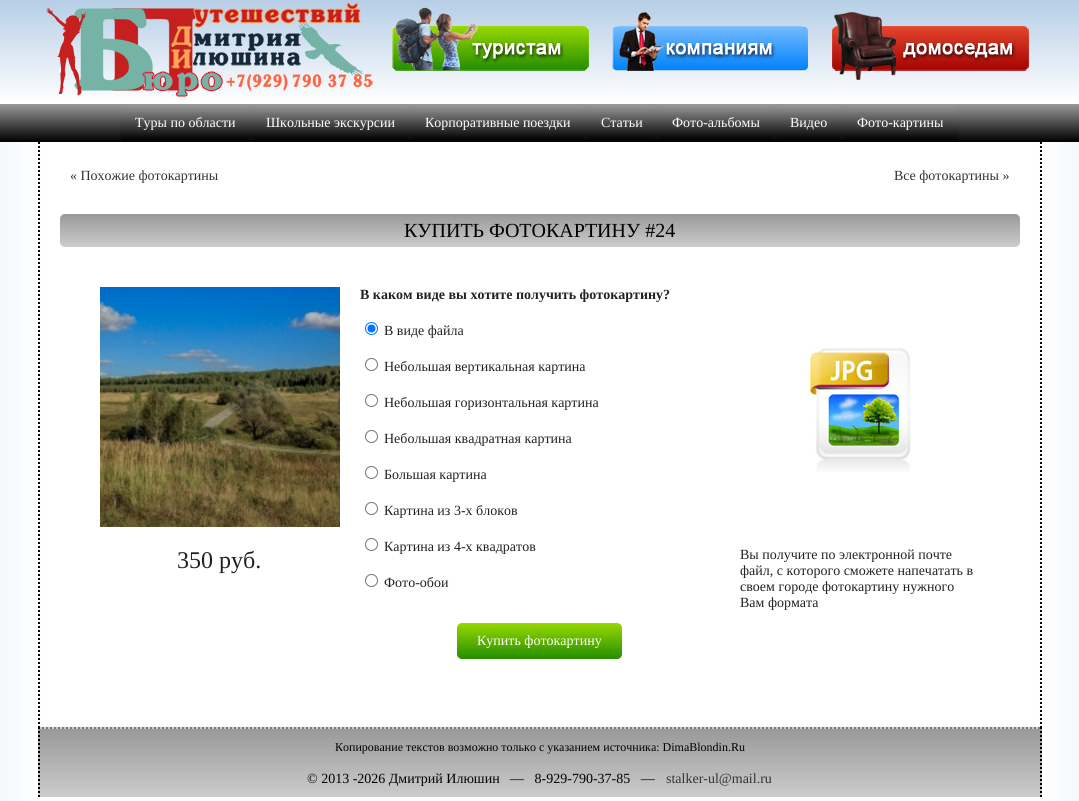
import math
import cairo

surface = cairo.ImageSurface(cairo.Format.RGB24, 1079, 801)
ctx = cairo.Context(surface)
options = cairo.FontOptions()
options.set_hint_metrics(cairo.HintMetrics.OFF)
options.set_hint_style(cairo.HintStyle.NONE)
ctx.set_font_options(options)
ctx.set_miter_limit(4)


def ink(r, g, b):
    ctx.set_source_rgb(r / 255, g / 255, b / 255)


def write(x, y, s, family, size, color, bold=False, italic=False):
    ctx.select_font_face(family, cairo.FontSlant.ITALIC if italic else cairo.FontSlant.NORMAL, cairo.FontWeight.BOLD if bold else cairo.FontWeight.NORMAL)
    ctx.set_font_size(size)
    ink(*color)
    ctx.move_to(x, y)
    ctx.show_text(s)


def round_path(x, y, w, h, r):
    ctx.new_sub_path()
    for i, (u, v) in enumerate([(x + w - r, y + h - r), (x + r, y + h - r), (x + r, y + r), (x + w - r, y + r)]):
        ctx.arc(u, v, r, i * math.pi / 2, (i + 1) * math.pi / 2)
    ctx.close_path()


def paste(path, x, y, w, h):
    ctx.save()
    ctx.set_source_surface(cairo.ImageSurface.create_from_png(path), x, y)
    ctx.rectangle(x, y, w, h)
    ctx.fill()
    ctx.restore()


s1 = dict(family="Liberation Serif", size=14, color=(255, 255, 255))
s2 = dict(family="Liberation Serif", size=14, color=(51, 51, 51))
s3 = dict(family="Liberation Serif", size=20, color=(0, 0, 0))
s4 = dict(family="Liberation Serif", size=24, color=(34, 34, 34))
s5 = dict(family="Liberation Serif", size=14, color=(34, 34, 34), bold=True)
s6 = dict(family="Liberation Serif", size=14, color=(34, 34, 34))
s7 = dict(family="Liberation Serif", size=12, color=(0, 0, 0))
s8 = dict(family="Liberation Serif", size=14, color=(0, 0, 0))

ink(255, 255, 255)
ctx.paint()
paste("pic1.png", 0, 142, 1079, 659)
gradient = cairo.LinearGradient(540, 0, 540, 104)
gradient.add_color_stop_rgba(0, 0.714, 0.808, 0.902, 1)
gradient.add_color_stop_rgba(1, 1, 1, 1, 1)
ctx.set_source(gradient)
ctx.rectangle(0, 0, 1079, 100)
ctx.fill()
paste("pic2.png", 46, 2, 327, 95)
paste("pic3.png", 392, 7, 197, 64)
paste("pic4.png", 612, 12, 196, 61)
paste("pic5.png", 832, 12, 197, 68)
gradient = cairo.LinearGradient(540, 104, 540, 142)
gradient.add_color_stop_rgba(0, 0.6, 0.6, 0.6, 1)
gradient.add_color_stop_rgba(1, 0, 0, 0, 1)
ctx.set_source(gradient)
ctx.rectangle(0, 104, 1079, 38)
ctx.fill()
gradient = cairo.LinearGradient(186, 105, 186, 140)
gradient.add_color_stop_rgba(0, 0.6, 0.6, 0.6, 1)
gradient.add_color_stop_rgba(1, 0, 0, 0, 1)
ctx.set_source(gradient)
round_path(120, 105, 131, 35, 5)
ctx.fill()
write(135, 127, "Туры по области", **s1)
gradient = cairo.LinearGradient(331, 105, 331, 140)
gradient.add_color_stop_rgba(0, 0.6, 0.6, 0.6, 1)
gradient.add_color_stop_rgba(1, 0, 0, 0, 1)
ctx.set_source(gradient)
round_path(251, 105, 159, 35, 5)
ctx.fill()
write(266, 127, "Школьные экскурсии", **s1)
gradient = cairo.LinearGradient(498, 105, 498, 140)
gradient.add_color_stop_rgba(0, 0.6, 0.6, 0.6, 1)
gradient.add_color_stop_rgba(1, 0, 0, 0, 1)
ctx.set_source(gradient)
round_path(410, 105, 176, 35, 5)
ctx.fill()
write(425, 127, "Корпоративные поездки", **s1)
gradient = cairo.LinearGradient(622, 105, 622, 140)
gradient.add_color_stop_rgba(0, 0.6, 0.6, 0.6, 1)
gradient.add_color_stop_rgba(1, 0, 0, 0, 1)
ctx.set_source(gradient)
round_path(586, 105, 71, 35, 5)
ctx.fill()
write(601, 127, "Статьи", **s1)
gradient = cairo.LinearGradient(716, 105, 716, 140)
gradient.add_color_stop_rgba(0, 0.6, 0.6, 0.6, 1)
gradient.add_color_stop_rgba(1, 0, 0, 0, 1)
ctx.set_source(gradient)
round_path(657, 105, 118, 35, 5)
ctx.fill()
write(672, 127, "Фото-альбомы", **s1)
gradient = cairo.LinearGradient(809, 105, 809, 140)
gradient.add_color_stop_rgba(0, 0.6, 0.6, 0.6, 1)
gradient.add_color_stop_rgba(1, 0, 0, 0, 1)
ctx.set_source(gradient)
round_path(775, 105, 67, 35, 5)
ctx.fill()
write(790, 127, "Видео", **s1)
gradient = cairo.LinearGradient(901, 105, 901, 140)
gradient.add_color_stop_rgba(0, 0.6, 0.6, 0.6, 1)
gradient.add_color_stop_rgba(1, 0, 0, 0, 1)
ctx.set_source(gradient)
round_path(842, 105, 117, 35, 5)
ctx.fill()
write(857, 127, "Фото-картины", **s1)
ctx.new_path()
ctx.move_to(39, 142)
ctx.line_to(39, 727)
ink(0, 0, 0)
ctx.set_dash([2, 2])
ctx.stroke()
write(70, 180, "« Похожие фотокартины", **s2)
write(894, 180, "Все фотокартины »", **s2)
gradient = cairo.LinearGradient(540, 214, 540, 247)
gradient.add_color_stop_rgba(0, 0.6, 0.6, 0.6, 1)
gradient.add_color_stop_rgba(1, 0.8, 0.8, 0.8, 1)
ctx.set_source(gradient)
round_path(60, 214, 960, 33, 5)
ctx.fill()
write(404, 237, "КУПИТЬ ФОТОКАРТИНУ #24", **s3)
paste("pic6.png", 100, 287, 240, 240)
write(177, 568, "350 руб.", **s4)
write(360, 299, "В каком виде вы хотите получить фотокартину?", **s5)
ctx.new_path()
ctx.arc(371.5, 328.5, 6, 0, 2 * math.pi)
ink(0, 117, 255)
ctx.set_line_width(1)
ctx.set_dash([])
ctx.stroke()
ctx.arc(371.5, 328.5, 4, 0, 2 * math.pi)
ctx.fill()
write(384, 335, "В виде файла", **s6)
ctx.new_path()
ctx.arc(371.5, 364.5, 6, 0, 2 * math.pi)
ink(118, 118, 118)
ctx.stroke()
write(384, 371, "Небольшая вертикальная картина", **s6)
ctx.new_path()
ctx.arc(371.5, 400.5, 6, 0, 2 * math.pi)
ink(118, 118, 118)
ctx.stroke()
write(384, 407, "Небольшая горизонтальная картина", **s6)
ctx.new_path()
ctx.arc(371.5, 436.5, 6, 0, 2 * math.pi)
ink(118, 118, 118)
ctx.stroke()
write(384, 443, "Небольшая квадратная картина", **s6)
ctx.new_path()
ctx.arc(371.5, 472.5, 6, 0, 2 * math.pi)
ink(118, 118, 118)
ctx.stroke()
write(384, 479, "Большая картина", **s6)
ctx.new_path()
ctx.arc(371.5, 508.5, 6, 0, 2 * math.pi)
ink(118, 118, 118)
ctx.stroke()
write(384, 515, "Картина из 3-х блоков", **s6)
ctx.new_path()
ctx.arc(371.5, 544.5, 6, 0, 2 * math.pi)
ink(118, 118, 118)
ctx.stroke()
write(384, 551, "Картина из 4-х квадратов", **s6)
ctx.new_path()
ctx.arc(371.5, 580.5, 6, 0, 2 * math.pi)
ink(118, 118, 118)
ctx.stroke()
write(384, 587, "Фото-обои", **s6)
gradient = cairo.LinearGradient(540, 623, 540, 659)
gradient.add_color_stop_rgba(0, 0.592, 0.851, 0, 1)
gradient.add_color_stop_rgba(1, 0.145, 0.553, 0, 1)
ctx.set_source(gradient)
round_path(457, 623, 165, 36, 5)
ctx.fill()
write(477, 645, "Купить фотокартину", **s1)
paste("pic7.png", 804, 348, 107, 124)
write(740, 559, "Вы получите по электронной почте", **s6)
write(740, 575, "файл, с которого сможете напечатать в", **s6)
write(740, 591, "своем городе фотокартину нужного", **s6)
write(740, 607, "Вам формата", **s6)
ctx.new_path()
ctx.move_to(1041, 142)
ctx.line_to(1041, 727)
ink(0, 0, 0)
ctx.set_line_width(2)
ctx.set_dash([2, 2])
ctx.stroke()
gradient = cairo.LinearGradient(540, 661, 540, 729)
gradient.add_color_stop_rgba(0, 0.6, 0.6, 0.6, 1)
gradient.add_color_stop_rgba(1, 0.8, 0.8, 0.8, 1)
ctx.set_source(gradient)
ctx.rectangle(38, 727, 1004, 2)
ctx.fill()
gradient = cairo.LinearGradient(540, 729, 540, 797)
gradient.add_color_stop_rgba(0, 0.6, 0.6, 0.6, 1)
gradient.add_color_stop_rgba(1, 0.8, 0.8, 0.8, 1)
ctx.set_source(gradient)
ctx.rectangle(38, 729, 1004, 68)
ctx.fill()
ctx.new_path()
ctx.move_to(38, 728)
ctx.line_to(1042, 728)
ink(119, 119, 119)
ctx.stroke()
ctx.new_path()
ctx.move_to(1041, 727)
ctx.line_to(1041, 797)
ink(0, 0, 0)
ctx.stroke()
ctx.new_path()
ctx.move_to(39, 727)
ctx.line_to(39, 797)
ctx.stroke()
write(335, 751, "Копирование текстов возможно только с указанием источника: DimaBlondin.Ru", **s7)
write(307, 783, "© 2013 -2026 Дмитрий Илюшин   —   8-929-790-37-85   —", **s8)
write(666, 783, "stalker-ul@mail.ru", **s2)
surface.write_to_png("screenshot.png")
